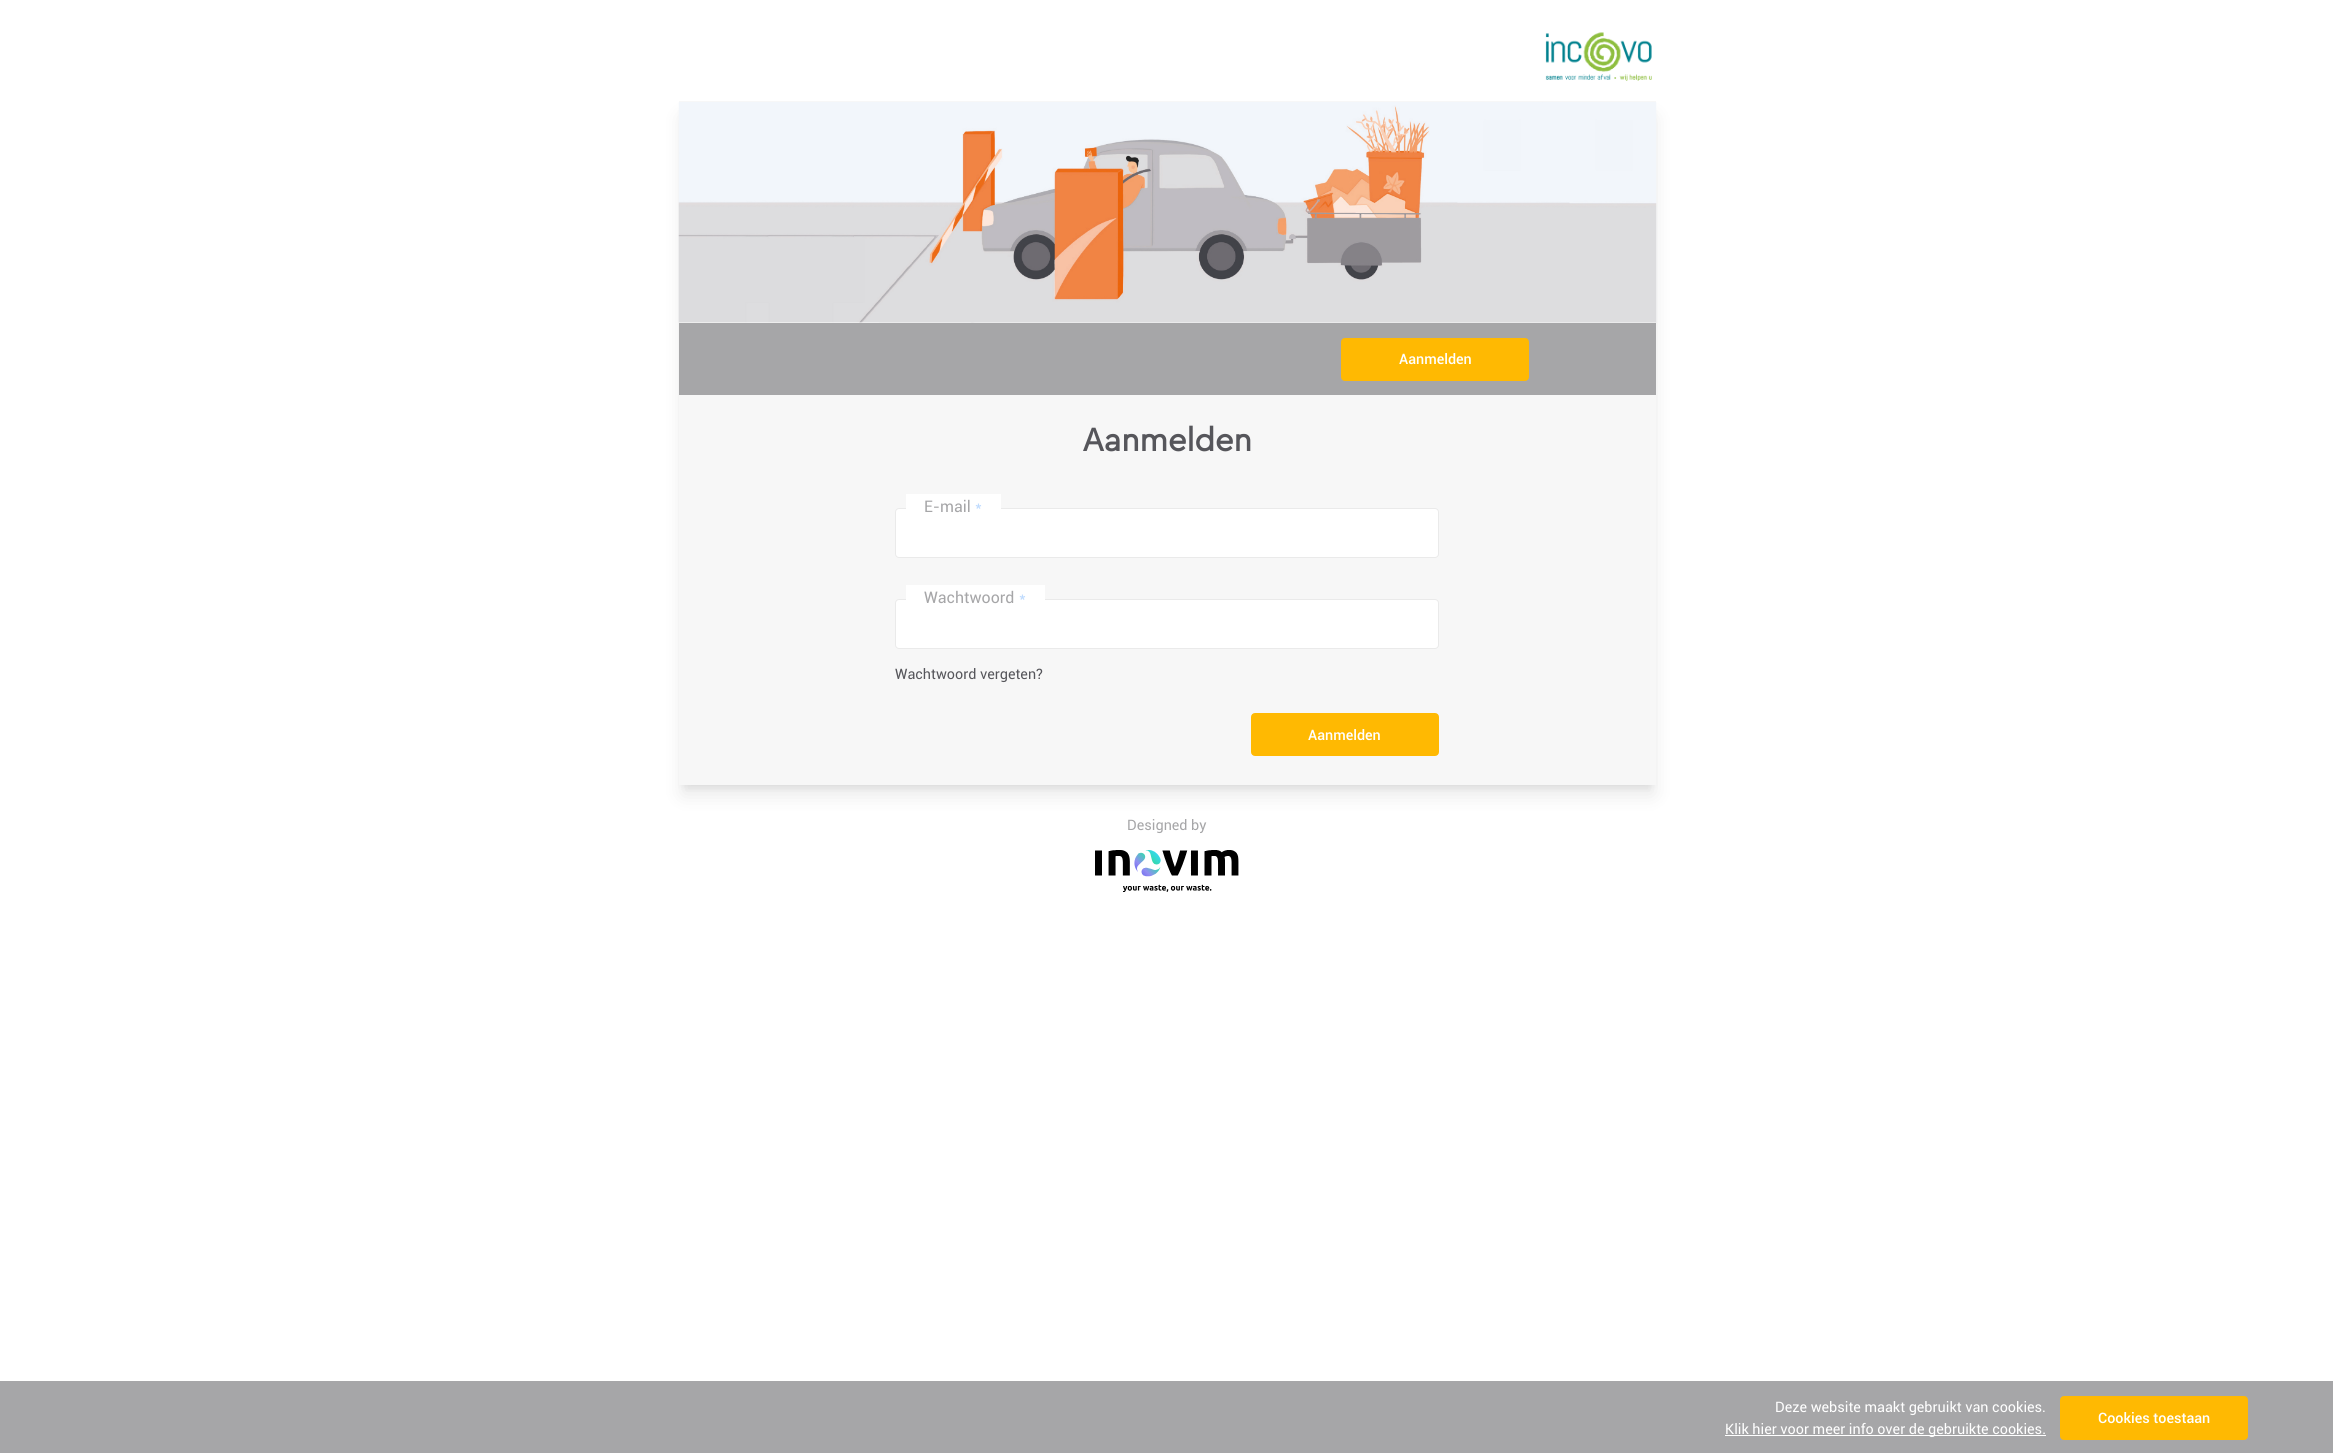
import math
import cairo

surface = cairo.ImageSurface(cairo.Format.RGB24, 2333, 1453)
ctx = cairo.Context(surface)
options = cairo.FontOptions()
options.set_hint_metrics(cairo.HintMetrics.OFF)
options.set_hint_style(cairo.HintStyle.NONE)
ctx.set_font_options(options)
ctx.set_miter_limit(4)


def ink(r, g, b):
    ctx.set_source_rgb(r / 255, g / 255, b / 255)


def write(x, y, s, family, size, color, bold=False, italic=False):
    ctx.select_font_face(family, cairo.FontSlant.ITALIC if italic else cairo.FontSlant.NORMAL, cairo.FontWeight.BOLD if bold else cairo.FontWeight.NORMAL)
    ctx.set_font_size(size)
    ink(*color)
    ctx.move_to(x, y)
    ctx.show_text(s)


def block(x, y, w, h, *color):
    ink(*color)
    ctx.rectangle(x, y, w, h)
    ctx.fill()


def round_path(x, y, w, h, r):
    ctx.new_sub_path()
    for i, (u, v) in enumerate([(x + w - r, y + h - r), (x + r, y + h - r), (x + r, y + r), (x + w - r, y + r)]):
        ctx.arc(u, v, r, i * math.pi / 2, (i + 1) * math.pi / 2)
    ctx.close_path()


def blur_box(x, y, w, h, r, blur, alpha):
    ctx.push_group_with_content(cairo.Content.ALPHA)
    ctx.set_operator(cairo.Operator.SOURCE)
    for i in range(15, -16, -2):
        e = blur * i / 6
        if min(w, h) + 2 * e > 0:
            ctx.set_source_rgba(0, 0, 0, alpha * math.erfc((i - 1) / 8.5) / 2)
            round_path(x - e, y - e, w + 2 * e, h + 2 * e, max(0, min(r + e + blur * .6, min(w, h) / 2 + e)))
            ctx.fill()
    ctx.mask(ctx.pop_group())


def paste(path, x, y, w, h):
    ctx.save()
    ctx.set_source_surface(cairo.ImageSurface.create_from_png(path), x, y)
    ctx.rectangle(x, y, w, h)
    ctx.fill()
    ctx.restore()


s1 = dict(family="Roboto Medium", size=14.4, color=(255, 255, 255))
s2 = dict(family="Noto Sans Medium", size=32.5, color=(86, 86, 91))
s3 = dict(family="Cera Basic", size=32.5, color=(86, 86, 91), bold=True)
s4 = dict(family="Roboto", size=16, color=(166, 166, 168))
s5 = dict(family="Roboto", size=16, color=(191, 219, 254))
s6 = dict(family="Roboto", size=14.4, color=(86, 86, 91))
s7 = dict(family="Roboto", size=14.4, color=(166, 166, 168))
s8 = dict(family="Roboto", size=14.4, color=(255, 255, 255))

ink(255, 255, 255)
ctx.paint()
paste("pic1.png", 1545, 32, 107, 49)
ink(0, 0, 0)
blur_box(684, 111, 967, 674, 0, 4, 0.1)
blur_box(683, 118, 970, 676, 0, 9.5, 0.1)
block(679, 101, 977, 684, 247, 247, 247)
paste("pic2.png", 678, 102, 979, 221)
block(679, 323, 977, 72, 166, 166, 168)
ink(255, 185, 2)
round_path(1342.5, 339.5, 185, 40, 2.5)
ctx.fill_preserve()
ctx.set_line_width(3)
ctx.stroke()
write(1399, 364, "Aanmelden", **s1)
write(1083, 451, "A", **s2)
write(1104, 451, "anmelden", **s3)
ink(255, 255, 255)
round_path(895.5, 508.5, 543, 49, 3.5)
ctx.fill_preserve()
ink(234, 234, 234)
ctx.set_line_width(1)
ctx.stroke()
block(906, 494, 95, 15, 255, 255, 255)
write(924, 512, "E-mail", **s4)
write(975, 512, "*", **s5)
ink(255, 255, 255)
round_path(895.5, 599.5, 543, 49, 3.5)
ctx.fill_preserve()
ink(234, 234, 234)
ctx.stroke()
block(906, 585, 139, 15, 255, 255, 255)
write(924, 603, "Wachtwoord", **s4)
write(1019, 603, "*", **s5)
write(895, 679, "Wachtwoord vergeten?", **s6)
ink(255, 185, 2)
round_path(1252.5, 714.5, 185, 40, 2.5)
ctx.fill_preserve()
ctx.set_line_width(3)
ctx.stroke()
write(1308, 740, "Aanmelden", **s1)
write(1127, 830, "Designed by", **s7)
paste("pic3.png", 1095, 850, 144, 42)
block(0, 1381, 2333, 72, 166, 166, 168)
write(1775, 1412, "Deze website maakt gebruikt van cookies.", **s8)
block(1725, 1435, 321, 1, 255, 255, 255)
write(1725, 1434, "Klik hier voor meer info over de gebruikte cookies.", **s8)
ink(255, 185, 2)
round_path(2061.5, 1397.5, 185, 41, 2.5)
ctx.fill_preserve()
ctx.stroke()
write(2098, 1423, "Cookies toestaan", **s1)
surface.write_to_png("screenshot.png")
